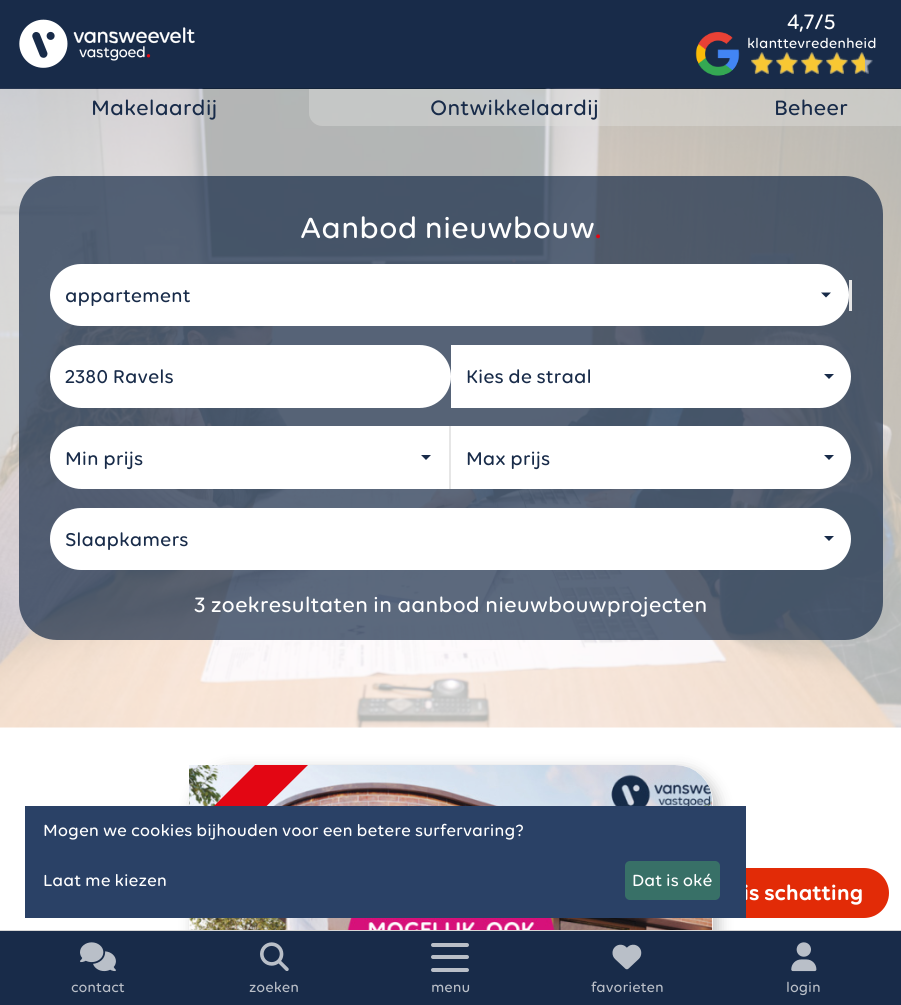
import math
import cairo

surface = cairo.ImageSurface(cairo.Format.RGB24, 901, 1005)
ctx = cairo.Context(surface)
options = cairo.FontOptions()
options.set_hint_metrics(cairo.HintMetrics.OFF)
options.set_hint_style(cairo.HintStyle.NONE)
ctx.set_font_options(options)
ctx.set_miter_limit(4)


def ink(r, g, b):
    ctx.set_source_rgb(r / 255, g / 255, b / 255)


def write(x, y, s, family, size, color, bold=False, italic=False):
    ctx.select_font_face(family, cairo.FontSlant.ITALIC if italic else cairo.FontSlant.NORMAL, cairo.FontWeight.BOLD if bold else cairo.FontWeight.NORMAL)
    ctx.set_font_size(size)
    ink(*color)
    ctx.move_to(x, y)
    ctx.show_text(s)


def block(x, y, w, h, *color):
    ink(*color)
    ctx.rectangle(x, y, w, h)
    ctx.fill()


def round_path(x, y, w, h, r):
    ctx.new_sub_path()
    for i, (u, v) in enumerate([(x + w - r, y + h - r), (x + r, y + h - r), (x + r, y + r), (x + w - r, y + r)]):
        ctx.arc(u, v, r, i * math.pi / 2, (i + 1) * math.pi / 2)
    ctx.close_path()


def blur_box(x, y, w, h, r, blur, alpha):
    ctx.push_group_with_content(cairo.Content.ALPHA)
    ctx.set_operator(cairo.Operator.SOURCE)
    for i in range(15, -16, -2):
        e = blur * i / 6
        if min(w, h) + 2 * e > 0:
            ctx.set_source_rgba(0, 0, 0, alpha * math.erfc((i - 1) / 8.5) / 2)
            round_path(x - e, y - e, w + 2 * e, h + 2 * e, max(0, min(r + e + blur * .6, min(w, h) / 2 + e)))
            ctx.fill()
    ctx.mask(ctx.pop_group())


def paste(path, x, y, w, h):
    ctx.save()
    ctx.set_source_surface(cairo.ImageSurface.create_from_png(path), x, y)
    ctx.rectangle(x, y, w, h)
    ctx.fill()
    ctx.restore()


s1 = dict(family="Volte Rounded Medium", size=22.5, color=(255, 255, 255))
s2 = dict(family="Volte Rounded Medium", size=15, color=(255, 255, 255))
s3 = dict(family="Volte Rounded Medium", size=22.5, color=(24, 43, 73))
s4 = dict(family="Volte Rounded Medium", size=31.5, color=(255, 255, 255))
s5 = dict(family="Volte Rounded Medium", size=31.5, color=(227, 6, 19))
s6 = dict(family="Volte Rounded Medium", size=20, color=(24, 43, 73))
s7 = dict(family="Volte Rounded Medium", size=15, color=(186, 191, 200))
s8 = dict(family="Volte Rounded SemiBold", size=22.5, color=(255, 255, 255))
s9 = dict(family="Volte Rounded Medium", size=17.5, color=(255, 255, 255))

ink(255, 255, 255)
ctx.paint()
block(0, 0, 901, 89, 24, 43, 73)
paste("pic1.png", 19, 19, 176, 49)
paste("pic2.png", 695, 32, 45, 44)
write(787, 29, "4,7/5", **s1)
write(747, 48, "klanttevredenheid", **s2)
paste("pic3.png", 751, 52, 122, 22)
paste("pic4.png", 751, 52, 114, 25)
paste("pic5.png", 0, 88, 901, 640)
write(91, 115, "Makelaardij", **s3)
ctx.set_source_rgba(0.882, 0.882, 0.878, 0.4)
ctx.new_path()
ctx.move_to(309, 89)
ctx.line_to(721, 89)
ctx.line_to(721, 126)
ctx.line_to(322, 126)
ctx.curve_to(315, 126, 309, 120, 309, 113)
ctx.close_path()
ctx.fill()
write(430, 115, "Ontwikkelaardij", **s3)
ctx.set_source_rgba(0.882, 0.882, 0.878, 0.4)
ctx.rectangle(721, 89, 180, 37)
ctx.fill()
write(774, 115, "Beheer", **s3)
ctx.set_source_rgba(0.094, 0.169, 0.282, 0.7)
round_path(19, 176, 864, 464, 38)
ctx.fill()
write(300, 238, "Aanbod nieuwbouw", **s4)
write(595, 238, ".", **s5)
block(849, 280, 3, 31, 230, 230, 230)
ink(255, 255, 255)
round_path(51.5, 265.5, 796, 59, 29.5)
ctx.fill_preserve()
ctx.set_line_width(3)
ctx.stroke()
write(65, 302, "appartement", **s6)
ctx.new_path()
ctx.move_to(821, 292.5)
ctx.line_to(831, 292.5)
ctx.line_to(826, 297.5)
ctx.close_path()
ctx.fill()
ink(255, 255, 255)
round_path(51.5, 346.5, 398, 60, 30)
ctx.fill_preserve()
ctx.stroke()
write(65, 383, "2380 Ravels", **s6)
ink(255, 255, 255)
ctx.new_path()
ctx.move_to(452.5, 346.5)
ctx.line_to(819.5, 346.5)
ctx.curve_to(836, 346.5, 849.5, 360, 849.5, 376.5)
ctx.curve_to(849.5, 393, 836, 406.5, 819.5, 406.5)
ctx.line_to(452.5, 406.5)
ctx.close_path()
ctx.fill_preserve()
ctx.stroke()
write(466, 383, "Kies de straal", **s6)
ctx.new_path()
ctx.move_to(824, 374)
ctx.line_to(834, 374)
ctx.line_to(829, 379)
ctx.close_path()
ctx.fill()
block(449, 426, 2, 63, 230, 230, 230)
ink(255, 255, 255)
ctx.new_path()
ctx.move_to(81.5, 427.5)
ctx.line_to(447.5, 427.5)
ctx.line_to(447.5, 487.5)
ctx.line_to(81.5, 487.5)
ctx.curve_to(65, 487.5, 51.5, 474, 51.5, 457.5)
ctx.curve_to(51.5, 441, 65, 427.5, 81.5, 427.5)
ctx.close_path()
ctx.fill_preserve()
ctx.stroke()
write(65, 465, "Min prijs", **s6)
ctx.new_path()
ctx.move_to(421, 455)
ctx.line_to(431, 455)
ctx.line_to(426, 460)
ctx.close_path()
ctx.fill()
ink(255, 255, 255)
ctx.new_path()
ctx.move_to(452.5, 427.5)
ctx.line_to(819.5, 427.5)
ctx.curve_to(836, 427.5, 849.5, 441, 849.5, 457.5)
ctx.curve_to(849.5, 474, 836, 487.5, 819.5, 487.5)
ctx.line_to(452.5, 487.5)
ctx.close_path()
ctx.fill_preserve()
ctx.stroke()
write(466, 465, "Max prijs", **s6)
ctx.new_path()
ctx.move_to(824, 455)
ctx.line_to(834, 455)
ctx.line_to(829, 460)
ctx.close_path()
ctx.fill()
ink(255, 255, 255)
round_path(51.5, 509.5, 798, 59, 29.5)
ctx.fill_preserve()
ctx.stroke()
write(65, 546, "Slaapkamers", **s6)
ctx.new_path()
ctx.move_to(824, 536)
ctx.line_to(834, 536)
ctx.line_to(829, 541)
ctx.close_path()
ctx.fill()
write(194, 612, "3 zoekresultaten in aanbod nieuwbouwprojecten", **s1)
ink(0, 0, 0)
blur_box(194, 770, 524, 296, 38, 7.5, 0.25)
ink(255, 255, 255)
ctx.new_path()
ctx.move_to(189, 765)
ctx.line_to(675, 765)
ctx.curve_to(696, 765, 713, 782, 713, 803)
ctx.line_to(713, 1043)
ctx.line_to(189, 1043)
ctx.close_path()
ctx.fill()
paste("pic6.png", 189, 765, 524, 165)
ink(227, 6, 19)
ctx.new_path()
ctx.move_to(308, 765)
ctx.line_to(189, 883)
ctx.line_to(189, 831)
ctx.line_to(255, 765)
ctx.close_path()
ctx.fill()
block(0, 931, 901, 74, 24, 43, 73)
block(0, 930, 901, 1, 214, 214, 214)
paste("pic7.png", 80, 942, 36, 30)
write(71, 992, "contact", **s7)
paste("pic8.png", 260, 942, 29, 29)
write(249, 992, "zoeken", **s7)
round_path(431, 943, 38, 4, 2)
ctx.fill()
round_path(431, 955, 38, 4, 2)
ctx.fill()
round_path(431, 968, 38, 4, 2)
ctx.fill()
write(431, 992, "menu", **s7)
paste("pic9.png", 612, 944, 30, 26)
write(591, 992, "favorieten", **s7)
paste("pic10.png", 791, 942, 26, 30)
write(786, 992, "login", **s7)
ink(226, 43, 7)
round_path(671, 868, 218, 50, 25)
ctx.fill()
write(743, 900, "is schatting", **s8)
block(25, 806, 721, 112, 42, 65, 102)
write(43, 836, "Mogen we cookies bijhouden voor een betere surfervaring?", **s9)
write(43, 886, "Laat me kiezen", **s9)
ink(56, 112, 103)
round_path(625, 861, 95, 39, 5)
ctx.fill()
write(632, 886, "Dat is oké", **s9)
surface.write_to_png("screenshot.png")
